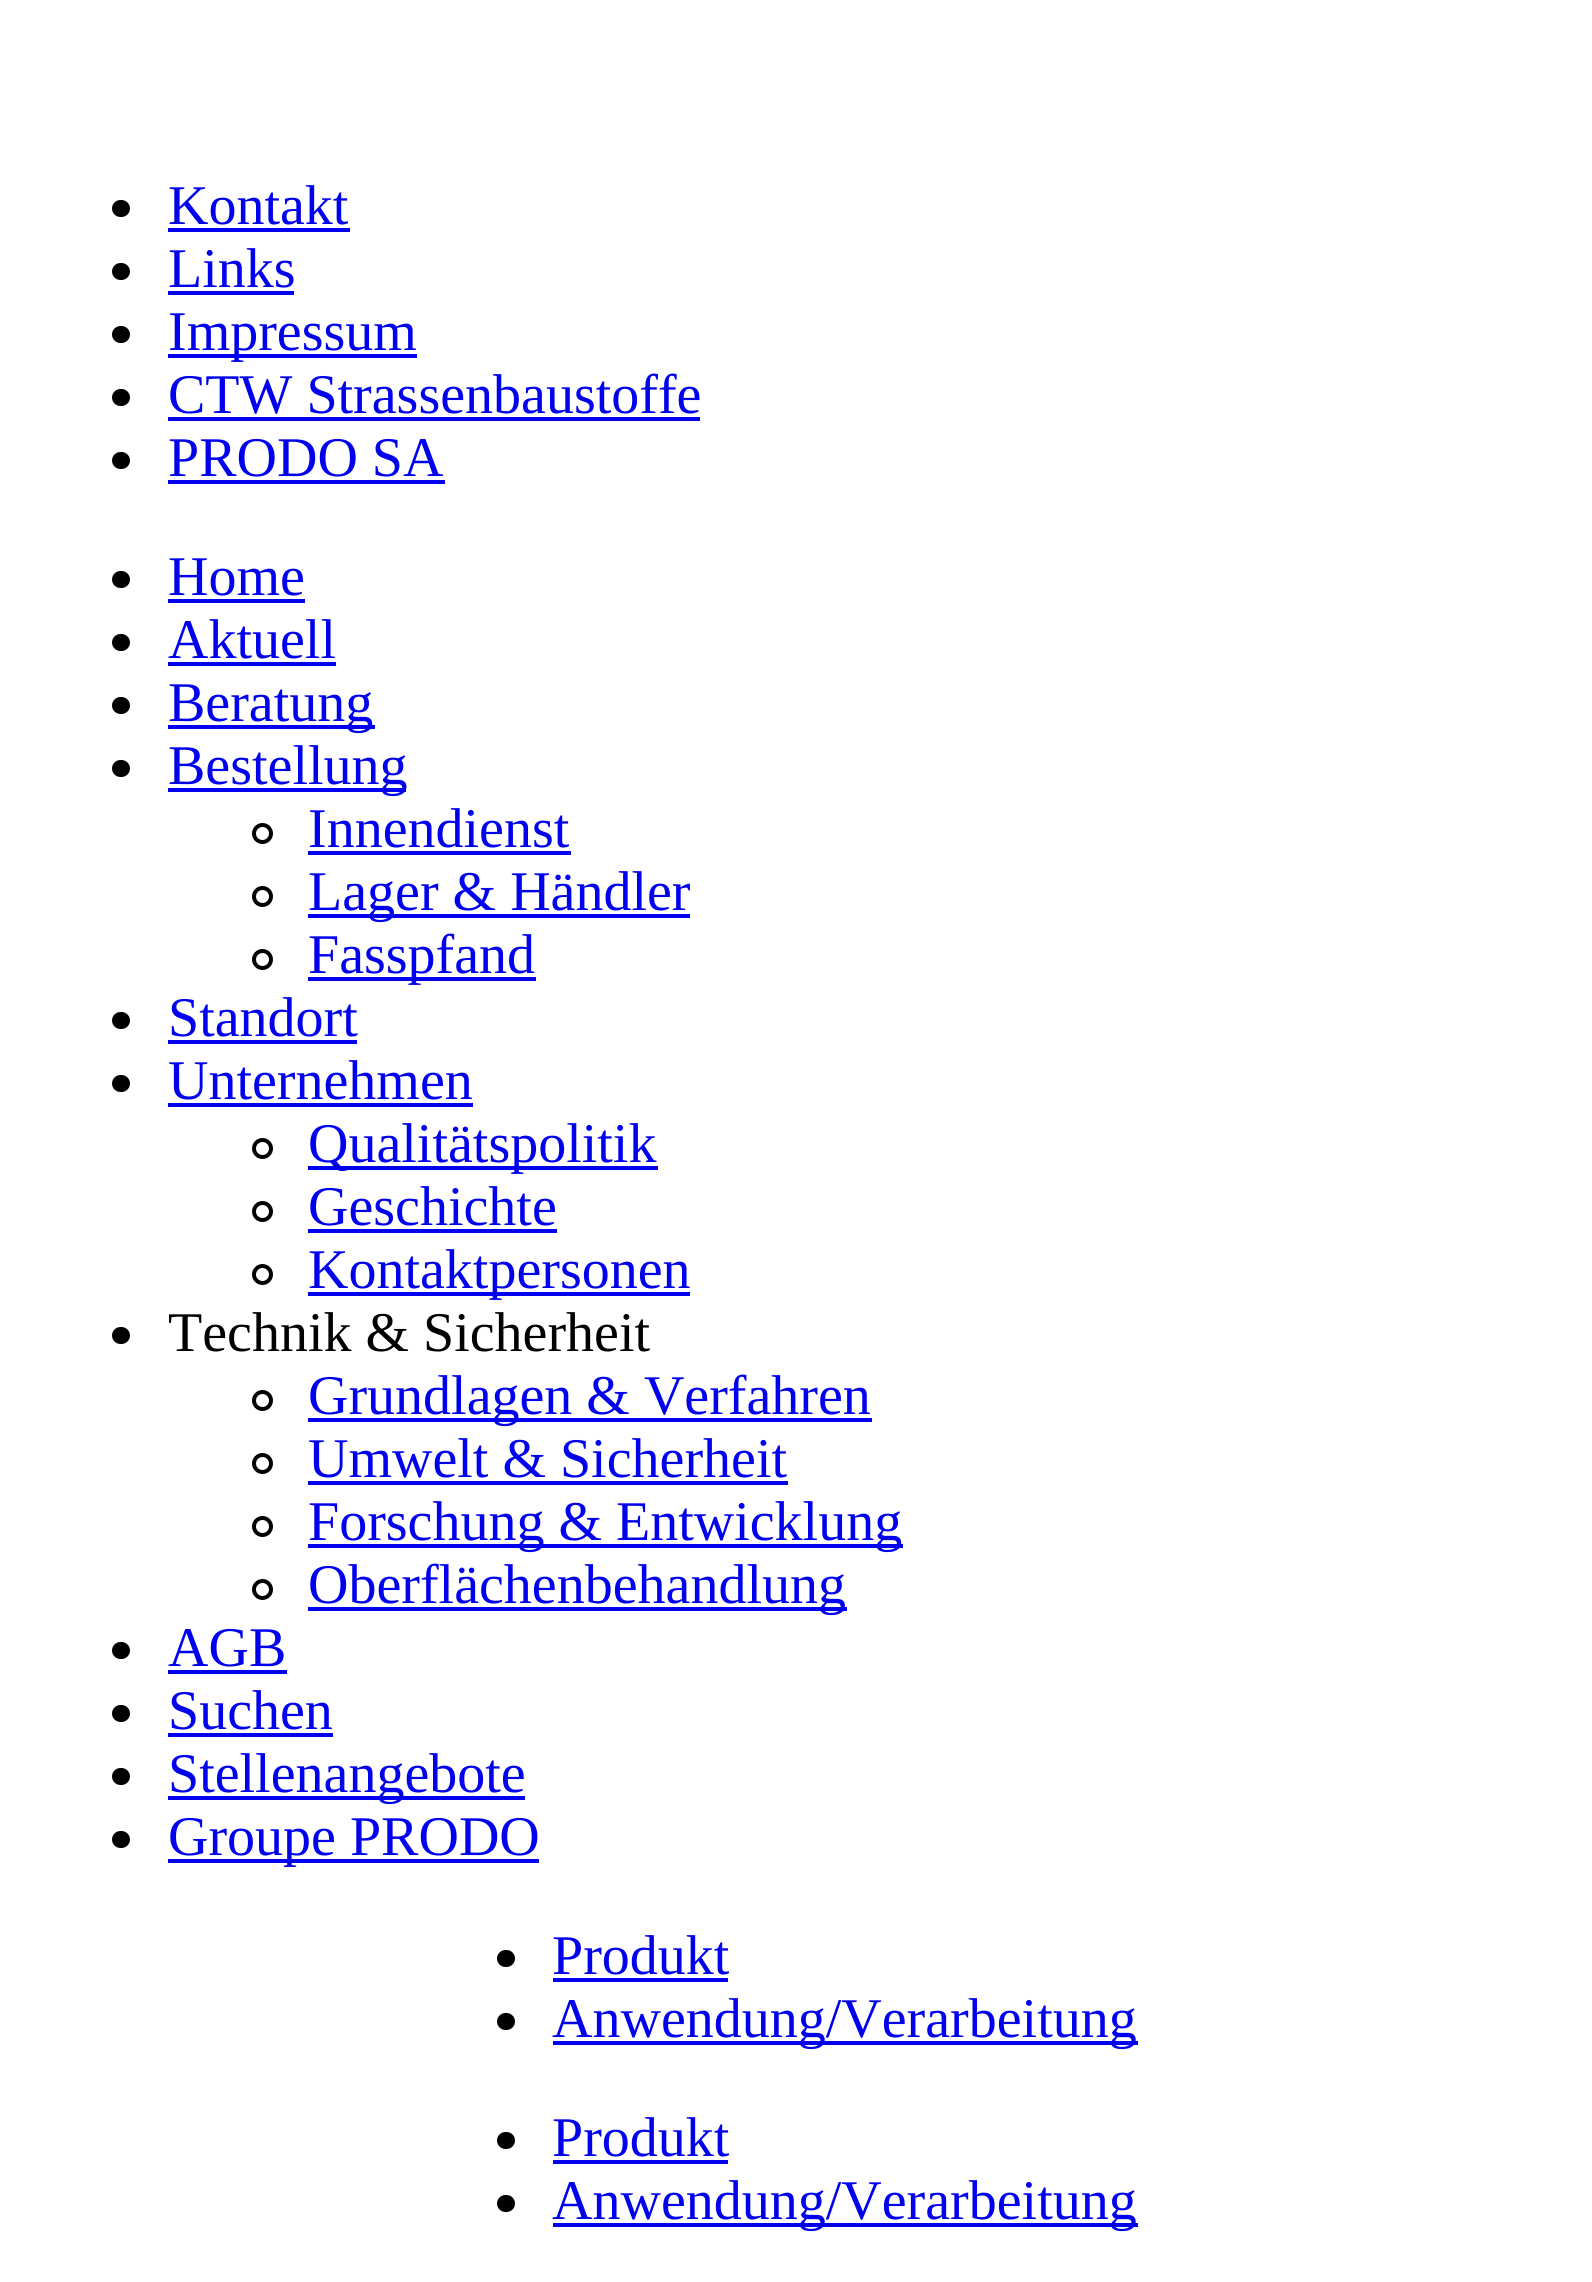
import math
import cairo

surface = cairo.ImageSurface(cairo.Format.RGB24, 1592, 2282)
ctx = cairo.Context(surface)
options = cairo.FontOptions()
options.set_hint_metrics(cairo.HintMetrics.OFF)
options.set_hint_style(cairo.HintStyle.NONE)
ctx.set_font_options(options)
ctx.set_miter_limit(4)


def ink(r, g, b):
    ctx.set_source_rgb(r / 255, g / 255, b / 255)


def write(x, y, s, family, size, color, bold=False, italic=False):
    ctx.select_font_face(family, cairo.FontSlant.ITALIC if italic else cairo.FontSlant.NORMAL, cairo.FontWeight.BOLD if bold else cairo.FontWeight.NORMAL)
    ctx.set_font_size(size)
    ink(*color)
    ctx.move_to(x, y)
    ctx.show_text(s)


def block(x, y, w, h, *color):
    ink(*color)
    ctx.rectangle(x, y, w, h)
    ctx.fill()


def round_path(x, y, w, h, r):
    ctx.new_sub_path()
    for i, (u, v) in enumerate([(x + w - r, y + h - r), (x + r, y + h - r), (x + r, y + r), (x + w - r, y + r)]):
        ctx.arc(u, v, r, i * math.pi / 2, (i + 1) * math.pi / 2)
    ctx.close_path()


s1 = dict(family="Liberation Serif", size=56, color=(0, 0, 238))
s2 = dict(family="Liberation Serif", size=56, color=(0, 0, 0))

ink(255, 255, 255)
ctx.paint()
ink(0, 0, 0)
round_path(112, 200, 18, 17, 8.5)
ctx.fill()
write(168, 224, "Kontakt", **s1)
block(168, 228, 182, 4, 0, 0, 238)
ink(0, 0, 0)
round_path(112, 263, 18, 17, 8.5)
ctx.fill()
write(168, 287, "Links", **s1)
block(168, 291, 126, 4, 0, 0, 238)
ink(0, 0, 0)
round_path(112, 326, 18, 17, 8.5)
ctx.fill()
block(168, 354, 249, 4, 0, 0, 238)
write(168, 350, "Impressum", **s1)
ink(0, 0, 0)
round_path(112, 389, 18, 17, 8.5)
ctx.fill()
write(168, 413, "CTW Strassenbaustoffe", **s1)
block(168, 417, 532, 4, 0, 0, 238)
ink(0, 0, 0)
round_path(112, 452, 18, 17, 8.5)
ctx.fill()
write(168, 476, "PRODO SA", **s1)
block(168, 480, 277, 4, 0, 0, 238)
ink(0, 0, 0)
round_path(112, 571, 18, 17, 8.5)
ctx.fill()
write(168, 595, "Home", **s1)
block(168, 599, 137, 4, 0, 0, 238)
ink(0, 0, 0)
round_path(112, 634, 18, 17, 8.5)
ctx.fill()
write(168, 658, "Aktuell", **s1)
block(168, 662, 168, 4, 0, 0, 238)
ink(0, 0, 0)
round_path(112, 697, 18, 17, 8.5)
ctx.fill()
block(168, 725, 207, 4, 0, 0, 238)
write(168, 721, "Beratung", **s1)
ink(0, 0, 0)
round_path(112, 760, 18, 17, 8.5)
ctx.fill()
block(168, 788, 238, 4, 0, 0, 238)
write(168, 784, "Bestellung", **s1)
ctx.new_path()
ctx.arc(262.5, 833.5, 8.5, 0, 2 * math.pi)
ink(0, 0, 0)
ctx.set_line_width(4)
ctx.stroke()
write(308, 847, "Innendienst", **s1)
block(308, 851, 263, 4, 0, 0, 238)
ctx.new_path()
ctx.arc(262.5, 896.5, 8.5, 0, 2 * math.pi)
ink(0, 0, 0)
ctx.stroke()
block(308, 914, 382, 4, 0, 0, 238)
write(308, 910, "Lager & Händler", **s1)
ctx.new_path()
ctx.arc(262.5, 959.5, 8.5, 0, 2 * math.pi)
ink(0, 0, 0)
ctx.stroke()
block(308, 977, 228, 4, 0, 0, 238)
write(308, 973, "Fasspfand", **s1)
ink(0, 0, 0)
round_path(112, 1012, 18, 17, 8.5)
ctx.fill()
write(168, 1036, "Standort", **s1)
block(168, 1040, 189, 4, 0, 0, 238)
ink(0, 0, 0)
round_path(112, 1075, 18, 17, 8.5)
ctx.fill()
write(168, 1099, "Unternehmen", **s1)
block(168, 1103, 305, 4, 0, 0, 238)
ctx.new_path()
ctx.arc(262.5, 1148.5, 8.5, 0, 2 * math.pi)
ink(0, 0, 0)
ctx.stroke()
block(308, 1166, 350, 4, 0, 0, 238)
write(308, 1162, "Qualitätspolitik", **s1)
ctx.new_path()
ctx.arc(262.5, 1211.5, 8.5, 0, 2 * math.pi)
ink(0, 0, 0)
ctx.stroke()
write(308, 1225, "Geschichte", **s1)
block(308, 1229, 249, 4, 0, 0, 238)
ctx.new_path()
ctx.arc(262.5, 1274.5, 8.5, 0, 2 * math.pi)
ink(0, 0, 0)
ctx.stroke()
block(308, 1292, 382, 4, 0, 0, 238)
write(308, 1288, "Kontaktpersonen", **s1)
ink(0, 0, 0)
round_path(112, 1327, 18, 17, 8.5)
ctx.fill()
write(168, 1351, "Technik & Sicherheit", **s2)
ctx.new_path()
ctx.arc(262.5, 1400.5, 8.5, 0, 2 * math.pi)
ctx.stroke()
block(308, 1418, 564, 4, 0, 0, 238)
write(308, 1414, "Grundlagen & Verfahren", **s1)
ctx.new_path()
ctx.arc(262.5, 1463.5, 8.5, 0, 2 * math.pi)
ink(0, 0, 0)
ctx.stroke()
write(308, 1477, "Umwelt & Sicherheit", **s1)
block(308, 1481, 480, 4, 0, 0, 238)
ctx.new_path()
ctx.arc(262.5, 1526.5, 8.5, 0, 2 * math.pi)
ink(0, 0, 0)
ctx.stroke()
block(308, 1544, 595, 4, 0, 0, 238)
write(308, 1540, "Forschung & Entwicklung", **s1)
ctx.new_path()
ctx.arc(262.5, 1589.5, 8.5, 0, 2 * math.pi)
ink(0, 0, 0)
ctx.stroke()
block(308, 1607, 539, 4, 0, 0, 238)
write(308, 1603, "Oberflächenbehandlung", **s1)
ink(0, 0, 0)
round_path(112, 1642, 18, 17, 8.5)
ctx.fill()
write(168, 1666, "AGB", **s1)
block(168, 1670, 119, 4, 0, 0, 238)
ink(0, 0, 0)
round_path(112, 1705, 18, 17, 8.5)
ctx.fill()
write(168, 1729, "Suchen", **s1)
block(168, 1733, 165, 4, 0, 0, 238)
ink(0, 0, 0)
round_path(112, 1768, 18, 17, 8.5)
ctx.fill()
block(168, 1796, 357, 4, 0, 0, 238)
write(168, 1792, "Stellenangebote", **s1)
ink(0, 0, 0)
round_path(112, 1831, 18, 17, 8.5)
ctx.fill()
block(168, 1859, 371, 4, 0, 0, 238)
write(168, 1855, "Groupe PRODO", **s1)
ink(0, 0, 0)
round_path(497, 1950, 18, 17, 8.5)
ctx.fill()
write(552, 1974, "Produkt", **s1)
block(553, 1978, 175, 4, 0, 0, 238)
ink(0, 0, 0)
round_path(497, 2013, 18, 17, 8.5)
ctx.fill()
block(553, 2041, 585, 4, 0, 0, 238)
write(552, 2037, "Anwendung/Verarbeitung", **s1)
ink(0, 0, 0)
round_path(497, 2132, 18, 17, 8.5)
ctx.fill()
write(552, 2156, "Produkt", **s1)
block(553, 2160, 175, 4, 0, 0, 238)
ink(0, 0, 0)
round_path(497, 2195, 18, 17, 8.5)
ctx.fill()
block(553, 2223, 585, 4, 0, 0, 238)
write(552, 2219, "Anwendung/Verarbeitung", **s1)
surface.write_to_png("screenshot.png")
